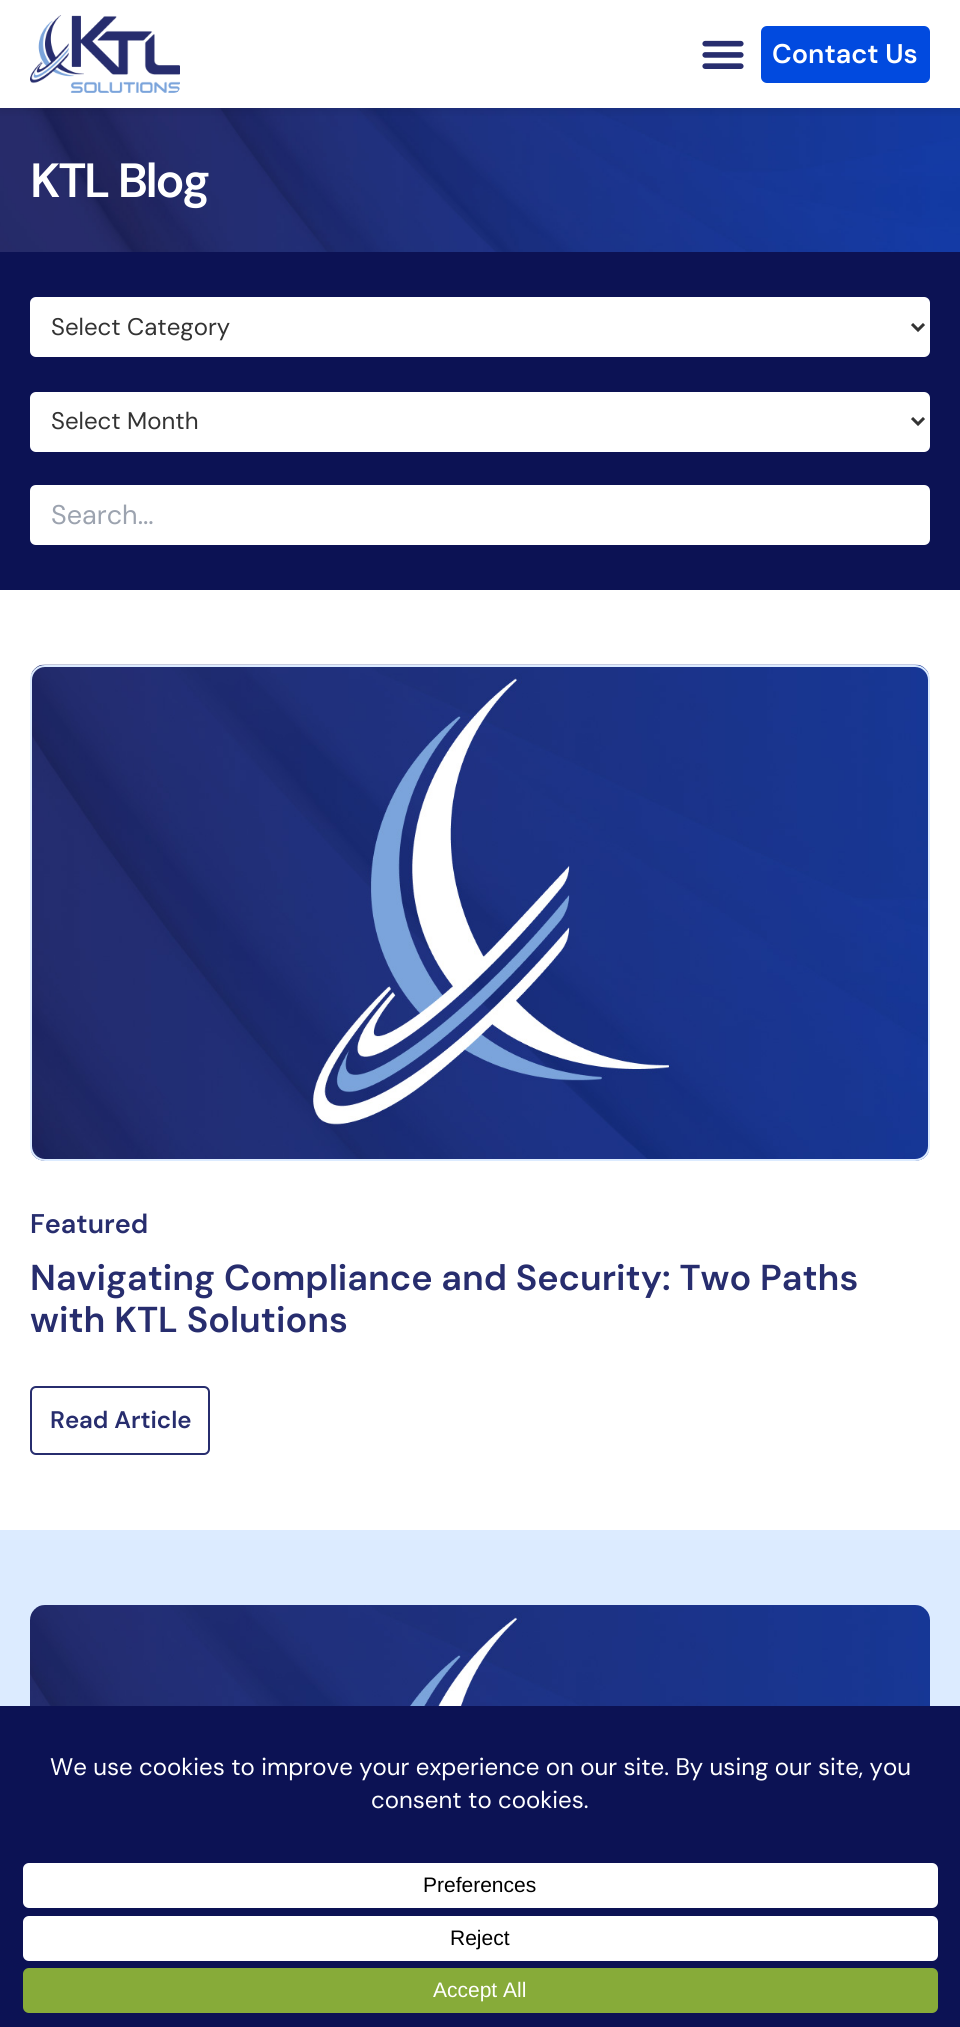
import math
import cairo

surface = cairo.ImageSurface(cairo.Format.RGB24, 960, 2027)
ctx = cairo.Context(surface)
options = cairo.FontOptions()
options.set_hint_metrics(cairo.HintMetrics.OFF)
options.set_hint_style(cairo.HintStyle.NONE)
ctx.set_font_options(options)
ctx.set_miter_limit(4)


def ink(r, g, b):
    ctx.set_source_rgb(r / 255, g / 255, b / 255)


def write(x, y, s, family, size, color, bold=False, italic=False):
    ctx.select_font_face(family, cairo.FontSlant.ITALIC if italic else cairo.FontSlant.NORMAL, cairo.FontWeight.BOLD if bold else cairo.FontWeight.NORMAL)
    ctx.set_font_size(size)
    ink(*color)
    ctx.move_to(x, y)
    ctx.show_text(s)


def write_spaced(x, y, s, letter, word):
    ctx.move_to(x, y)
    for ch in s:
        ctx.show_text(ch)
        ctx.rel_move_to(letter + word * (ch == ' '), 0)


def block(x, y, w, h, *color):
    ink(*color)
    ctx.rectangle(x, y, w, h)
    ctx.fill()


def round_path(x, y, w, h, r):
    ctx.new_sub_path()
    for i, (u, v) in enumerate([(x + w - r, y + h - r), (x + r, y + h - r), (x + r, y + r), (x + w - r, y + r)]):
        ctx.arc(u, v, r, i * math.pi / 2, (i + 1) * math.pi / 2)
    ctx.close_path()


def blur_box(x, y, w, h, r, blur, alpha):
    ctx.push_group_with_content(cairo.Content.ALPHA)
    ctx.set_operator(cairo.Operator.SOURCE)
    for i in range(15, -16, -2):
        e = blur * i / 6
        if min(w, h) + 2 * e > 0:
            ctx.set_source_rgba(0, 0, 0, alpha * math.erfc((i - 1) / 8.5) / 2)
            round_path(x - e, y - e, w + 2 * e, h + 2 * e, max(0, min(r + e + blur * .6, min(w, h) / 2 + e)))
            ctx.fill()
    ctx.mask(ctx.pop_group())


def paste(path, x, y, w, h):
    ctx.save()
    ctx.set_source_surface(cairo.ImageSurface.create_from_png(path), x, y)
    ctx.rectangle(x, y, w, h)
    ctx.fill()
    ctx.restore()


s1 = dict(family="DM Sans SemiBold", size=27, color=(255, 255, 255))
s2 = dict(family="DM Sans", size=24, color=(51, 51, 51))
s3 = dict(family="DM Sans", size=27, color=(156, 163, 175))
s4 = dict(family="DM Sans SemiBold", size=27, color=(39, 45, 110))
s5 = dict(family="DM Sans SemiBold", size=36, color=(39, 45, 110))
s6 = dict(family="DM Sans SemiBold", size=24, color=(39, 45, 110))
s7 = dict(family="DM Sans", size=24, color=(255, 255, 255))
s8 = dict(family="Liberation Sans", size=21, color=(0, 0, 0))
s9 = dict(family="Liberation Sans", size=21, color=(255, 255, 255))

ink(255, 255, 255)
ctx.paint()
paste("pic3.png", 0, 108, 960, 144)
ctx.save()
ctx.rectangle(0, 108, 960, 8)
ctx.clip()
ink(0, 0, 0)
blur_box(0, 0, 960, 108, 0, 7.5, 0.15)
ctx.restore()
paste("pic1.png", 30, 15, 150, 78)
paste("pic2.png", 702, 40, 42, 29)
ink(1, 74, 223)
round_path(761, 26, 169, 57, 6)
ctx.fill()
write(772, 63, "Contact Us", **s1)
ctx.set_font_size(48)
write_spaced(30, 197, "KTL Blog", -2.25, 0)
block(0, 252, 960, 338, 12, 18, 84)
ink(255, 255, 255)
round_path(30, 297, 900, 60, 6)
ctx.fill()
ctx.new_path()
ctx.move_to(912, 324)
ctx.line_to(918, 330)
ctx.line_to(924, 324)
ink(51, 51, 51)
ctx.set_line_width(3)
ctx.stroke()
write(51, 335, "Select Category", **s2)
ink(255, 255, 255)
round_path(30, 392, 900, 60, 6)
ctx.fill()
ctx.new_path()
ctx.move_to(912, 418)
ctx.line_to(918, 424)
ctx.line_to(924, 418)
ink(51, 51, 51)
ctx.stroke()
write(51, 429, "Select Month", **s2)
ink(255, 255, 255)
ctx.new_path()
ctx.move_to(36, 485)
ctx.line_to(879, 485)
ctx.line_to(879, 545)
ctx.line_to(36, 545)
ctx.curve_to(32.5, 545, 30, 542.5, 30, 539)
ctx.line_to(30, 491)
ctx.curve_to(30, 487.5, 32.5, 485, 36, 485)
ctx.close_path()
ctx.fill()
write(51, 524, "Search...", **s3)
ink(255, 255, 255)
ctx.new_path()
ctx.move_to(879, 485)
ctx.line_to(924, 485)
ctx.curve_to(927.5, 485, 930, 487.5, 930, 491)
ctx.line_to(930, 539)
ctx.curve_to(930, 542.5, 927.5, 545, 924, 545)
ctx.line_to(879, 545)
ctx.close_path()
ctx.fill()
paste("pic4.png", 31, 664, 898, 497)
round_path(31, 666, 898, 494, 14)
ink(220, 235, 255)
ctx.set_line_width(2)
ctx.stroke()
write(30, 1233, "Featured", **s4)
write(30, 1290, "Navigating Compliance and Security: Two Paths", **s5)
write(30, 1332, "with KTL Solutions", **s5)
round_path(31, 1387, 178, 67, 5)
ctx.stroke()
write(50, 1428, "Read Article", **s6)
block(0, 1530, 960, 176, 220, 235, 255)
paste("pic5.png", 30, 1605, 900, 101)
block(0, 1706, 960, 321, 12, 18, 84)
write(50, 1775, "We use cookies to improve your experience on our site. By using our site, you", **s7)
write(371, 1808, "consent to cookies.", **s7)
round_path(23, 1863, 915, 45, 6)
ctx.fill()
write(423, 1892, "Preferences", **s8)
ink(255, 255, 255)
round_path(23, 1916, 915, 45, 6)
ctx.fill()
write(450, 1945, "Reject", **s8)
ink(135, 171, 57)
round_path(23, 1968, 915, 45, 6)
ctx.fill()
write(433, 1997, "Accept All", **s9)
surface.write_to_png("screenshot.png")
